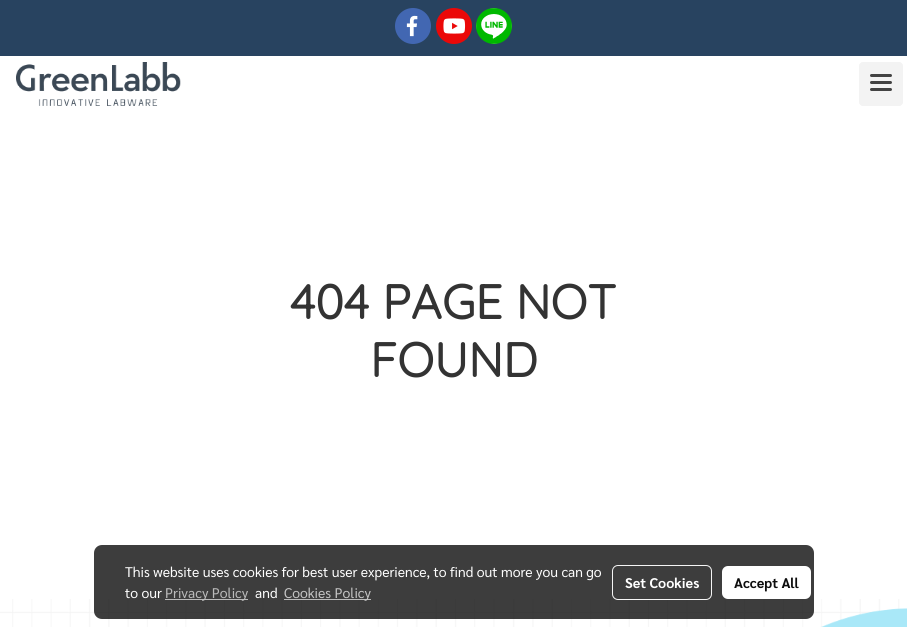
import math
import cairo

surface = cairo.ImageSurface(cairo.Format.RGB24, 907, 627)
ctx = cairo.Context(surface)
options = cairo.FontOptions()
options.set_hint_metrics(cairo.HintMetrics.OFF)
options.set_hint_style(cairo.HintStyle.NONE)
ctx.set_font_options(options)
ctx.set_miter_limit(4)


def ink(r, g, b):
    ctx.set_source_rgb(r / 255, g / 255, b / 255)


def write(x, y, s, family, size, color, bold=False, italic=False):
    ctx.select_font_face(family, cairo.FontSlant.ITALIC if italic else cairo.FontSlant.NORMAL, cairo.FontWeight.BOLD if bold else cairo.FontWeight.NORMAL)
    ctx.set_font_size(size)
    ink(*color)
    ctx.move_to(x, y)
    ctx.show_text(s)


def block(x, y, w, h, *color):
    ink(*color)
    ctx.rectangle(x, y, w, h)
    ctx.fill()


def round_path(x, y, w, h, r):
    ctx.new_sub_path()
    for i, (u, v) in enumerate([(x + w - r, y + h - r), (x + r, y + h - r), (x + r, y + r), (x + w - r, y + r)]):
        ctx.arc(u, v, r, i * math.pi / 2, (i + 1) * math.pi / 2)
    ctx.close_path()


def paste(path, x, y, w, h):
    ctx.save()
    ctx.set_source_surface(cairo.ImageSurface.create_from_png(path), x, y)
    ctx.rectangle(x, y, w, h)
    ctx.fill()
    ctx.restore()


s1 = dict(family="Quicksand", size=48, color=(51, 51, 51), bold=True)
s2 = dict(family="Sarabun", size=14, color=(255, 255, 255))
s3 = dict(family="Sarabun", size=14, color=(187, 187, 187))
s4 = dict(family="Sarabun", size=14, color=(197, 197, 197))
s5 = dict(family="Sarabun", size=14, color=(255, 255, 255), bold=True)
s6 = dict(family="Sarabun", size=14, color=(13, 13, 13), bold=True)

ink(255, 255, 255)
ctx.paint()
block(0, 0, 907, 56, 40, 67, 96)
ink(66, 103, 178)
ctx.arc(413, 26, 18, 0, 2 * math.pi)
ctx.fill()
paste("pic1.png", 406, 15, 12, 22)
ink(235, 8, 8)
ctx.arc(454, 26, 18, 0, 2 * math.pi)
ctx.fill()
paste("pic2.png", 443, 18, 23, 16)
ink(0, 184, 0)
ctx.arc(494, 26, 18, 0, 2 * math.pi)
ctx.fill()
paste("pic3.png", 476, 8, 36, 36)
paste("pic4.png", 16, 62, 165, 44)
ink(243, 243, 243)
round_path(859.5, 62.5, 43, 43, 3.5)
ctx.fill_preserve()
ctx.set_line_width(1)
ctx.stroke()
ink(67, 67, 67)
round_path(870, 81, 22, 3, 1.5)
ctx.fill()
round_path(870, 74, 22, 3, 1.5)
ctx.fill()
round_path(870, 88, 22, 3, 1.5)
ctx.fill()
write(290, 319, "404 PAGE NOT", **s1)
write(370, 377, "FOUND", **s1)
paste("pic5.png", 0, 599, 907, 28)
ctx.set_source_rgba(0, 0, 0, 0.76)
round_path(94, 545, 720, 74, 8)
ctx.fill()
write(125, 577, "This website uses cookies for best user experience, to find out more you can go", **s2)
write(125, 598, "to our", **s2)
block(165, 599, 83, 1, 187, 187, 187)
write(165, 598, "Privacy Policy", **s3)
write(255, 598, "and", **s2)
block(284, 599, 87, 1, 187, 187, 187)
write(284, 598, "Cookies Policy", **s4)
round_path(612.5, 565.5, 99, 34, 5.5)
ink(245, 245, 245)
ctx.stroke()
write(625, 588, "Set Cookies", **s5)
round_path(722, 566, 89, 33, 6)
ctx.fill()
write(734, 588, "Accept All", **s6)
surface.write_to_png("screenshot.png")
